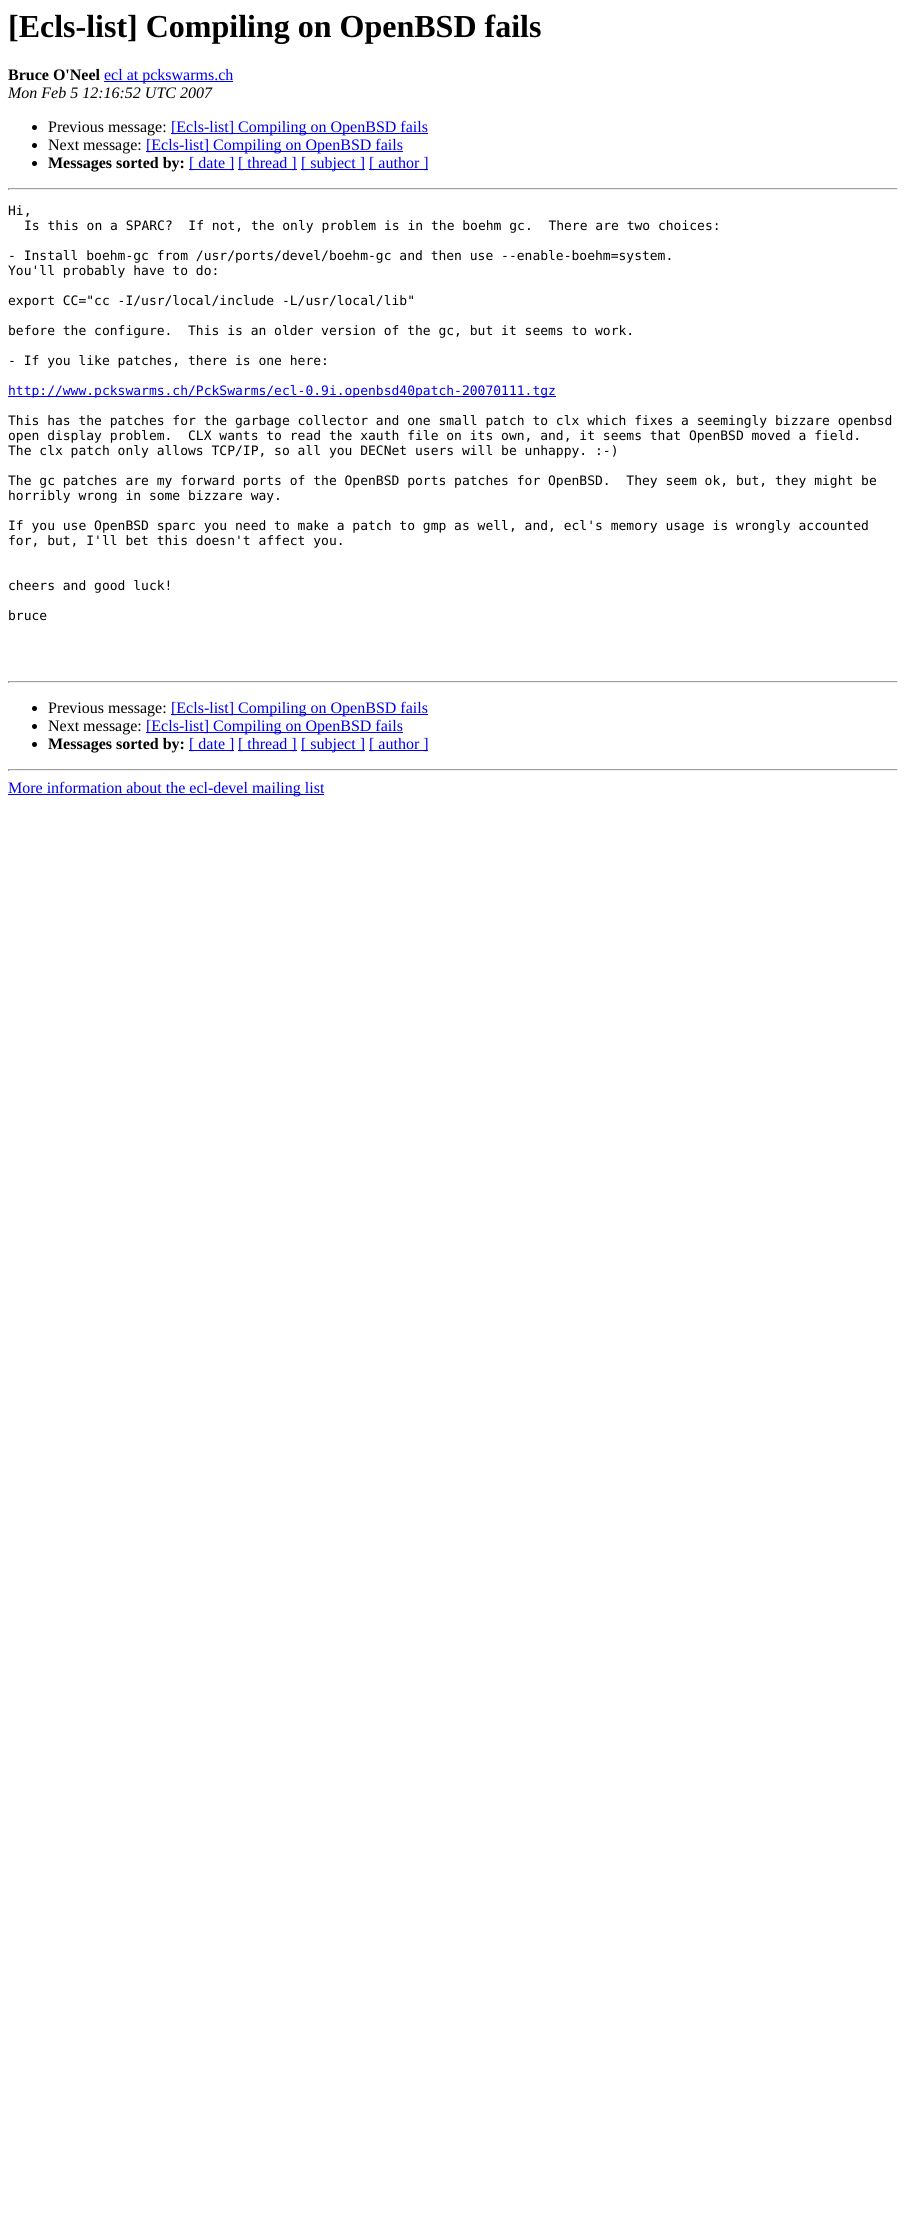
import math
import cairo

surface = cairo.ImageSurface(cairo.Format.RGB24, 906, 2232)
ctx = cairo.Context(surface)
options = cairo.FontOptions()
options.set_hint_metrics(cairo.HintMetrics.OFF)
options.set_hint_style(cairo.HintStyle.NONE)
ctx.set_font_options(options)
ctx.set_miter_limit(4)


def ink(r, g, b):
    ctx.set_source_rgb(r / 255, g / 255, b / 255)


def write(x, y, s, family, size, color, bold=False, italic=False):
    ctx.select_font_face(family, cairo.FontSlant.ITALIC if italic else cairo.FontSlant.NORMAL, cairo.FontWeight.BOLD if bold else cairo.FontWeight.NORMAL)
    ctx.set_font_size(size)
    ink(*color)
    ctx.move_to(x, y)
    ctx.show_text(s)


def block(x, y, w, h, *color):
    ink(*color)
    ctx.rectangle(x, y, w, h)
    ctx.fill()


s1 = dict(family="Liberation Serif", size=32, color=(0, 0, 0), bold=True)
s2 = dict(family="Liberation Serif", size=16, color=(0, 0, 0), bold=True)
s3 = dict(family="Liberation Serif", size=16, color=(0, 0, 238))
s4 = dict(family="Liberation Serif", size=16, color=(0, 0, 0), italic=True)
s5 = dict(family="Liberation Serif", size=16, color=(0, 0, 0))
s6 = dict(family="DejaVu Sans Mono", size=13, color=(0, 0, 0))
s7 = dict(family="DejaVu Sans Mono", size=13, color=(0, 0, 238))

ink(255, 255, 255)
ctx.paint()
write(8, 37, "[Ecls-list] Compiling on OpenBSD fails", **s1)
write(8, 80, "Bruce O'Neel", **s2)
block(104, 81, 129, 1, 0, 0, 238)
write(104, 80, "ecl at pckswarms.ch", **s3)
write(8, 98, "Mon Feb 5 12:16:52 UTC 2007", **s4)
ctx.new_path()
ctx.arc(34.5, 127.5, 2.5, 0, 2 * math.pi)
ctx.fill()
write(48, 132, "Previous message:", **s5)
block(171, 133, 257, 1, 0, 0, 238)
write(171, 132, "[Ecls-list] Compiling on OpenBSD fails", **s3)
ink(0, 0, 0)
ctx.new_path()
ctx.arc(34.5, 145.5, 2.5, 0, 2 * math.pi)
ctx.fill()
write(48, 150, "Next message:", **s5)
block(146, 151, 257, 1, 0, 0, 238)
write(146, 150, "[Ecls-list] Compiling on OpenBSD fails", **s3)
ink(0, 0, 0)
ctx.new_path()
ctx.arc(34.5, 163.5, 2.5, 0, 2 * math.pi)
ctx.fill()
write(48, 168, "Messages sorted by:", **s2)
block(189, 169, 45, 1, 0, 0, 238)
write(189, 168, "[ date ]", **s3)
block(238, 169, 59, 1, 0, 0, 238)
write(238, 168, "[ thread ]", **s3)
block(301, 169, 64, 1, 0, 0, 238)
write(301, 168, "[ subject ]", **s3)
block(369, 169, 59, 1, 0, 0, 238)
write(369, 168, "[ author ]", **s3)
block(8, 188, 890, 1, 159, 159, 159)
block(897, 188, 1, 2, 238, 238, 238)
block(8, 189, 890, 1, 238, 238, 238)
block(8, 188, 1, 2, 159, 159, 159)
write(8, 215, "Hi,", **s6)
write(24, 230, "Is this on a SPARC?  If not, the only problem is in the boehm gc.  There are two choices:", **s6)
write(8, 260, "- Install boehm-gc from /usr/ports/devel/boehm-gc and then use --enable-boehm=system.", **s6)
write(8, 275, "You'll probably have to do:", **s6)
write(8, 305, "export CC=\"cc -I/usr/local/include -L/usr/local/lib\"", **s6)
write(8, 335, "before the configure.  This is an older version of the gc, but it seems to work.", **s6)
write(8, 365, "- If you like patches, there is one here:", **s6)
block(8, 396, 548, 1, 0, 0, 238)
write(8, 395, "http://www.pckswarms.ch/PckSwarms/ecl-0.9i.openbsd40patch-20070111.tgz", **s7)
write(8, 425, "This has the patches for the garbage collector and one small patch to clx which fixes a seemingly bizzare openbsd", **s6)
write(8, 440, "open display problem.  CLX wants to read the xauth file on its own, and, it seems that OpenBSD moved a field.", **s6)
write(8, 455, "The clx patch only allows TCP/IP, so all you DECNet users will be unhappy. :-)", **s6)
write(8, 485, "The gc patches are my forward ports of the OpenBSD ports patches for OpenBSD.  They seem ok, but, they might be", **s6)
write(8, 500, "horribly wrong in some bizzare way.", **s6)
write(8, 530, "If you use OpenBSD sparc you need to make a patch to gmp as well, and, ecl's memory usage is wrongly accounted", **s6)
write(8, 545, "for, but, I'll bet this doesn't affect you.", **s6)
write(8, 590, "cheers and good luck!", **s6)
write(8, 620, "bruce", **s6)
block(8, 681, 890, 1, 159, 159, 159)
block(897, 681, 1, 2, 238, 238, 238)
block(8, 682, 890, 1, 238, 238, 238)
block(8, 681, 1, 2, 159, 159, 159)
ink(0, 0, 0)
ctx.new_path()
ctx.arc(34.5, 708.5, 2.5, 0, 2 * math.pi)
ctx.fill()
write(48, 713, "Previous message:", **s5)
block(171, 714, 257, 1, 0, 0, 238)
write(171, 713, "[Ecls-list] Compiling on OpenBSD fails", **s3)
ink(0, 0, 0)
ctx.new_path()
ctx.arc(34.5, 726.5, 2.5, 0, 2 * math.pi)
ctx.fill()
write(48, 731, "Next message:", **s5)
block(146, 732, 257, 1, 0, 0, 238)
write(146, 731, "[Ecls-list] Compiling on OpenBSD fails", **s3)
ink(0, 0, 0)
ctx.new_path()
ctx.arc(34.5, 744.5, 2.5, 0, 2 * math.pi)
ctx.fill()
write(48, 749, "Messages sorted by:", **s2)
block(189, 750, 45, 1, 0, 0, 238)
write(189, 749, "[ date ]", **s3)
block(238, 750, 59, 1, 0, 0, 238)
write(238, 749, "[ thread ]", **s3)
block(301, 750, 64, 1, 0, 0, 238)
write(301, 749, "[ subject ]", **s3)
block(369, 750, 59, 1, 0, 0, 238)
write(369, 749, "[ author ]", **s3)
block(8, 769, 890, 1, 159, 159, 159)
block(897, 769, 1, 2, 238, 238, 238)
block(8, 770, 890, 1, 238, 238, 238)
block(8, 769, 1, 2, 159, 159, 159)
block(8, 794, 316, 1, 0, 0, 238)
write(8, 793, "More information about the ecl-devel mailing list", **s3)
surface.write_to_png("screenshot.png")
